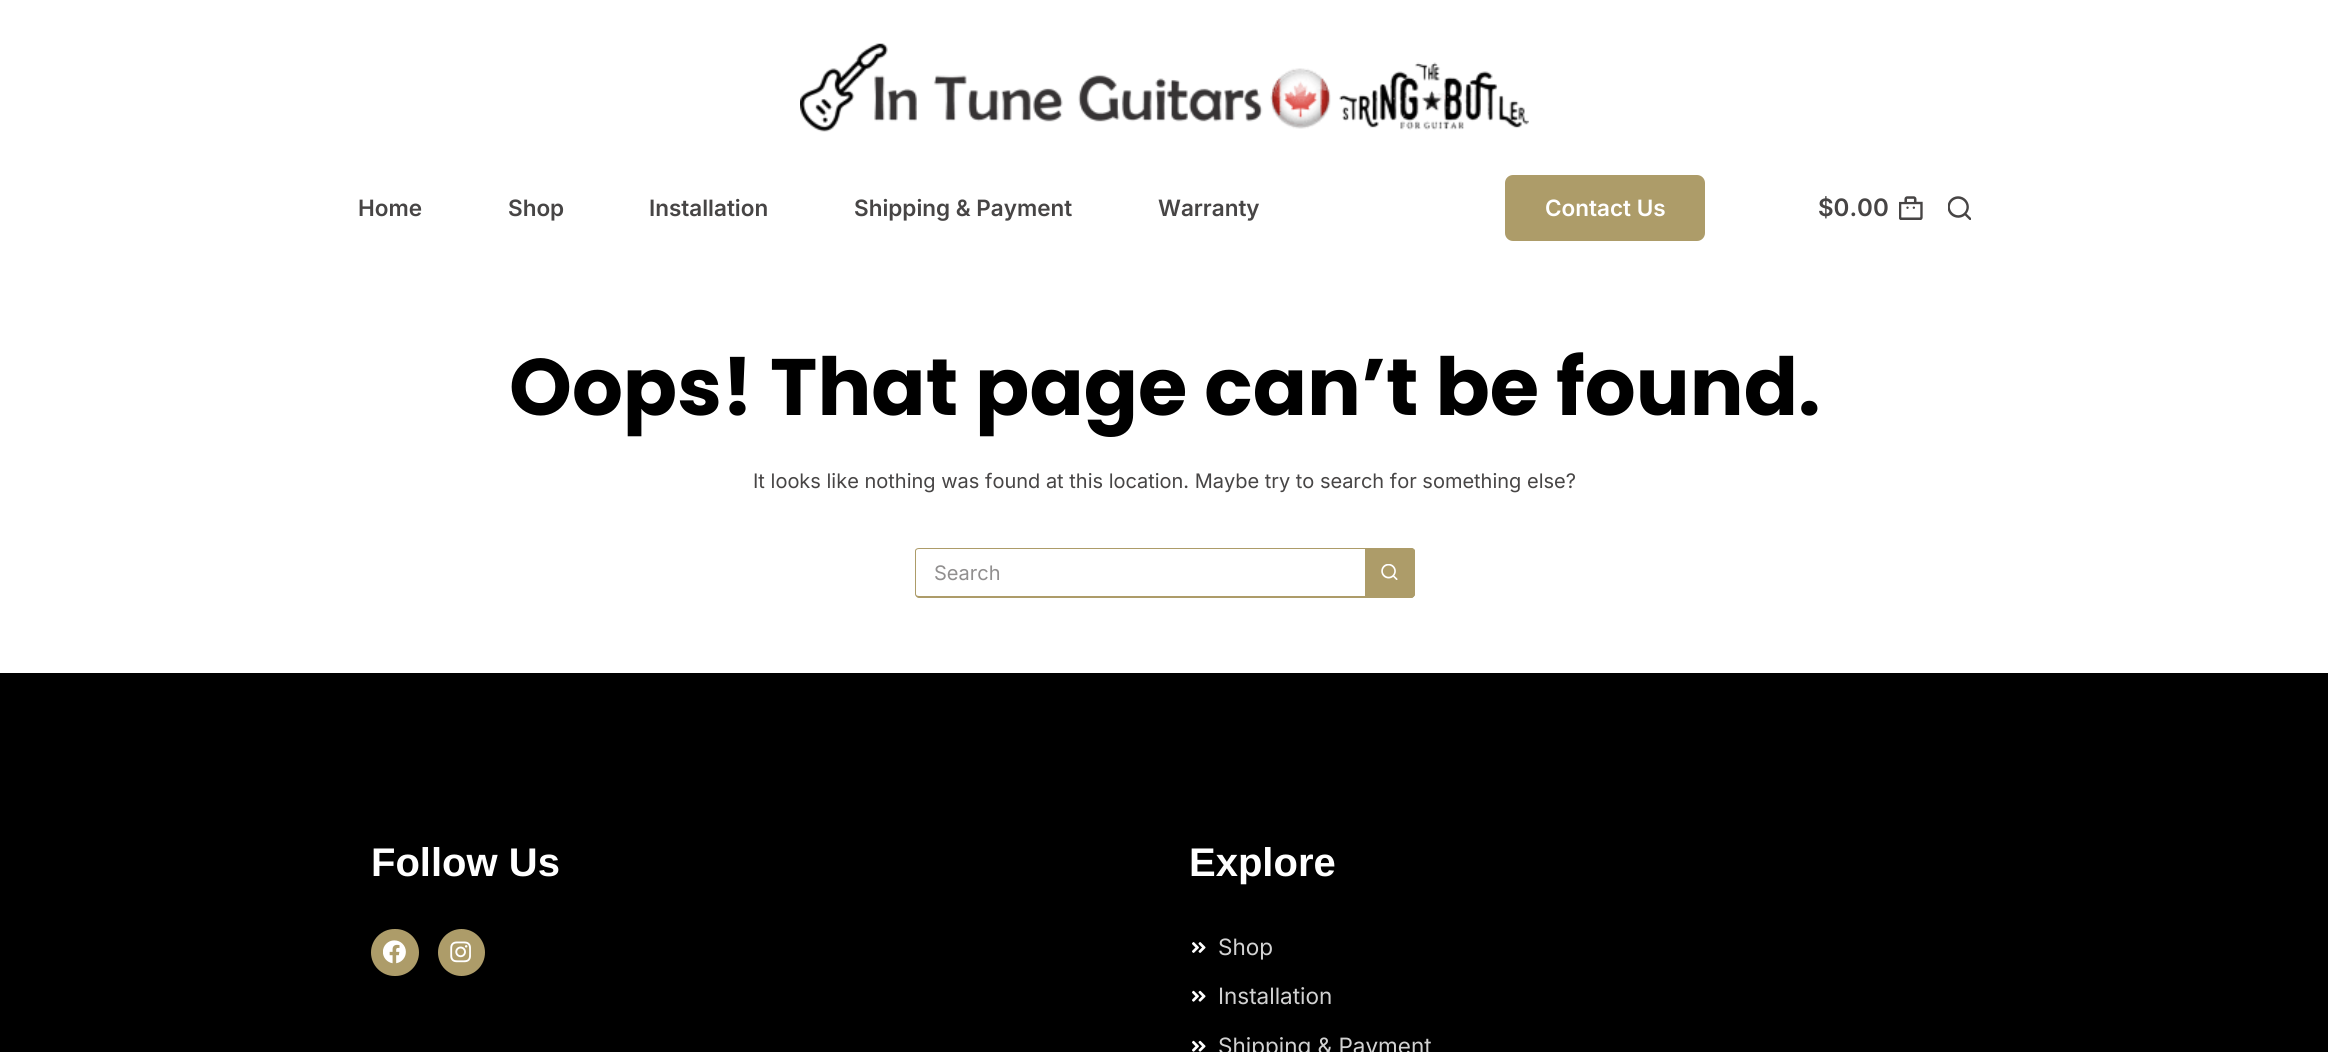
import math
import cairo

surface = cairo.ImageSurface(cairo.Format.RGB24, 2328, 1052)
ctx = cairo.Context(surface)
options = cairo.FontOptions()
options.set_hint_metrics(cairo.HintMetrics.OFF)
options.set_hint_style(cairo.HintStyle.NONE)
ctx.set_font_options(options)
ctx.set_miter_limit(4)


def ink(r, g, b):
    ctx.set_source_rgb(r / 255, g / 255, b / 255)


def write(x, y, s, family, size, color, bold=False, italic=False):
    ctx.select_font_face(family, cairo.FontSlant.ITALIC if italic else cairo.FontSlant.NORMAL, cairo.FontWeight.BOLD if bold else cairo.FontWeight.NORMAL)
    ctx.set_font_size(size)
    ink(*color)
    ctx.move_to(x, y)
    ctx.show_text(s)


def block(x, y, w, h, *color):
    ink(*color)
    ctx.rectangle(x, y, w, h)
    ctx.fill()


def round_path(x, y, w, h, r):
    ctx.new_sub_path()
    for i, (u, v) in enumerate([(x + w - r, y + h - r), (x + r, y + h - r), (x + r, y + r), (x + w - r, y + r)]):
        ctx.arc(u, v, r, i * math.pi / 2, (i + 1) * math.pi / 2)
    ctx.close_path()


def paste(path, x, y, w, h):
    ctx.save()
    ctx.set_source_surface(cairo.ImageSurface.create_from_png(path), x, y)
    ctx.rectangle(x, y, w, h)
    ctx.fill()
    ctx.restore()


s1 = dict(family="Inter SemiBold", size=22.5, color=(71, 69, 69))
s2 = dict(family="Inter SemiBold", size=22.5, color=(255, 255, 255))
s3 = dict(family="Inter SemiBold", size=24, color=(71, 69, 69))
s4 = dict(family="Poppins", size=80, color=(0, 0, 0), bold=True)
s5 = dict(family="Inter", size=20, color=(71, 69, 69))
s6 = dict(family="Inter", size=20, color=(145, 143, 143))
s7 = dict(family="Liberation Sans", size=40, color=(255, 255, 255), bold=True)
s8 = dict(family="Inter", size=22.5, color=(210, 210, 210))

ink(255, 255, 255)
ctx.paint()
paste("pic1.png", 800, 43, 729, 89)
write(358, 216, "Home", **s1)
write(508, 216, "Shop", **s1)
write(649, 216, "Installation", **s1)
write(854, 216, "Shipping & Payment", **s1)
write(1158, 216, "Warranty", **s1)
ink(173, 156, 105)
round_path(1505, 175, 200, 66, 8)
ctx.fill()
write(1545, 216, "Contact Us", **s2)
write(1818, 216, "$0.00", **s3)
paste("pic2.png", 1899, 196, 24, 24)
paste("pic3.png", 1948, 196, 23, 24)
write(509, 415, "Oops! That page can’t be found.", **s4)
write(753, 488, "It looks like nothing was found at this location. Maybe try to search for something else?", **s5)
ink(173, 156, 105)
ctx.set_fill_rule(cairo.FillRule.EVEN_ODD)
ctx.new_path()
ctx.move_to(919, 548)
ctx.line_to(1365, 548)
ctx.line_to(1365, 598)
ctx.line_to(919, 598)
ctx.curve_to(917, 598, 915, 596, 915, 594)
ctx.line_to(915, 551)
ctx.curve_to(915, 549, 917, 548, 919, 548)
ctx.close_path()
ctx.move_to(919, 549)
ctx.line_to(1365, 549)
ctx.line_to(1365, 596)
ctx.line_to(919, 596)
ctx.curve_to(917, 596, 916, 595, 916, 594)
ctx.line_to(916, 551)
ctx.curve_to(916, 550, 917, 549, 919, 549)
ctx.close_path()
ctx.fill()
write(934, 580, "Search", **s6)
ink(173, 156, 105)
ctx.new_path()
ctx.move_to(1365, 548)
ctx.line_to(1411, 548)
ctx.curve_to(1413, 548, 1415, 550, 1415, 552)
ctx.line_to(1415, 594)
ctx.curve_to(1415, 596, 1413, 598, 1411, 598)
ctx.line_to(1365, 598)
ctx.close_path()
ctx.fill()
ctx.new_path()
ctx.move_to(1365, 548)
ctx.line_to(1411, 548)
ctx.curve_to(1413, 548, 1415, 549, 1415, 551)
ctx.line_to(1415, 594)
ctx.curve_to(1415, 596, 1413, 598, 1411, 598)
ctx.line_to(1365, 598)
ctx.close_path()
ctx.move_to(1365, 549)
ctx.line_to(1411, 549)
ctx.curve_to(1413, 549, 1414, 550, 1414, 551)
ctx.line_to(1414, 594)
ctx.curve_to(1414, 595, 1413, 596, 1411, 596)
ctx.line_to(1365, 596)
ctx.close_path()
ctx.fill()
paste("pic4.png", 1381, 564, 17, 16)
block(0, 673, 2328, 379, 0, 0, 0)
write(371, 876, "Follow Us", **s7)
ink(173, 156, 105)
round_path(371, 929, 48, 47, 23.5)
ctx.fill()
paste("pic5.png", 383, 940, 23, 24)
ctx.arc(461.5, 952.5, 23.5, 0, 2 * math.pi)
ctx.fill()
paste("pic6.png", 450, 941, 21, 22)
write(1189, 876, "Explore", **s7)
paste("pic7.png", 1192, 942, 14, 11)
write(1218, 955, "Shop", **s8)
paste("pic8.png", 1192, 990, 14, 12)
write(1218, 1004, "Installation", **s8)
paste("pic8.png", 1192, 1040, 14, 12)
write(1218, 1054, "Shipping & Payment", **s8)
surface.write_to_png("screenshot.png")
